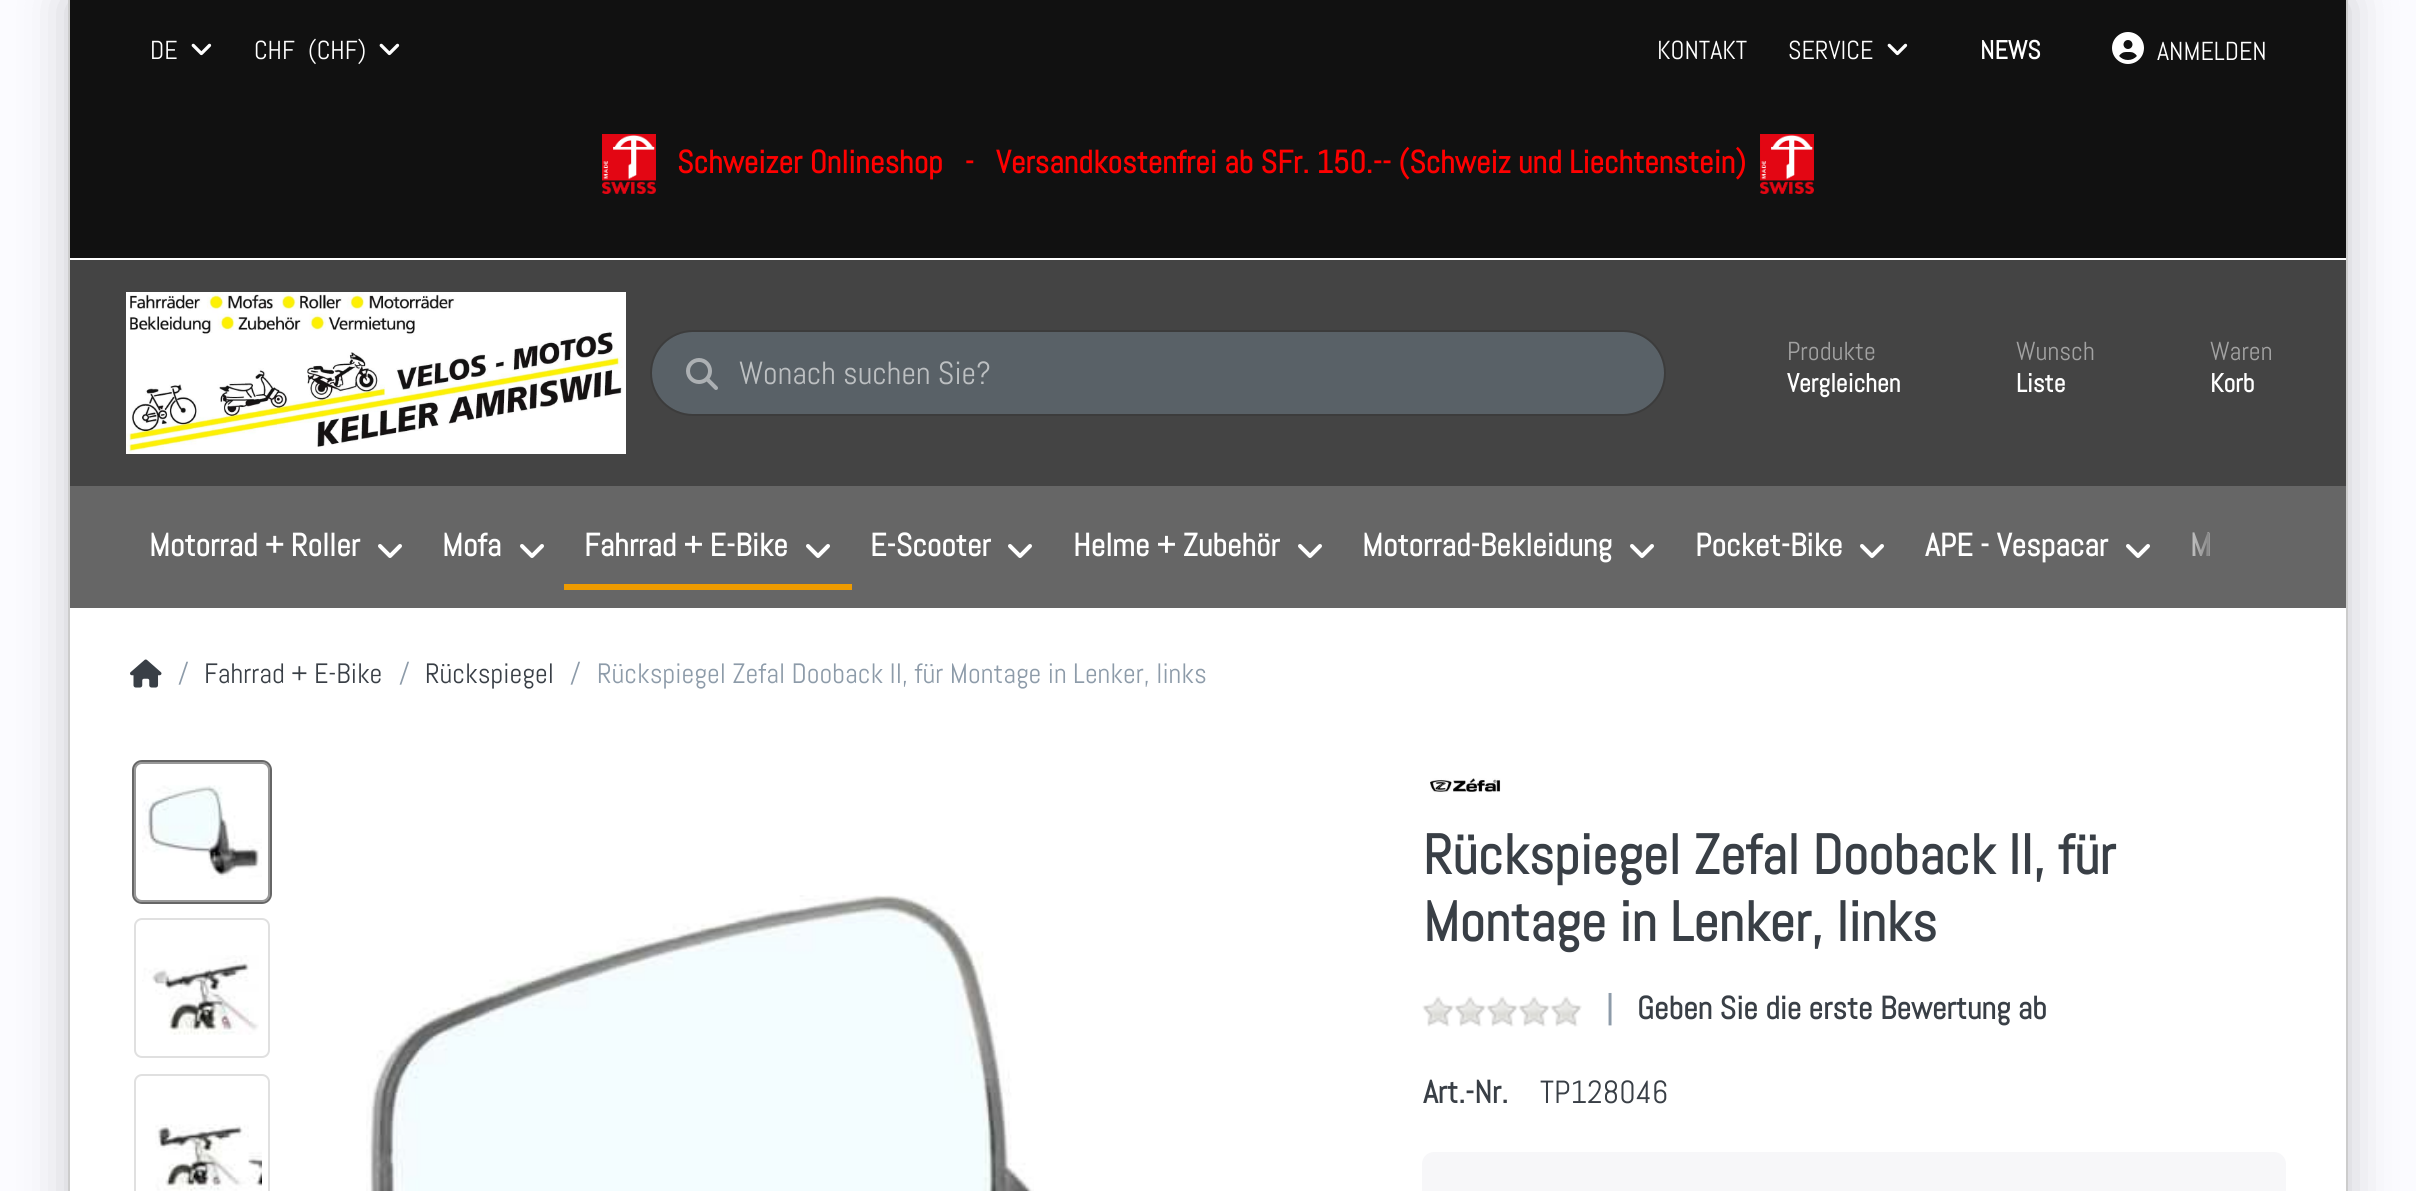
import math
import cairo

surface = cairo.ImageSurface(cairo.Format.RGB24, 2416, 1191)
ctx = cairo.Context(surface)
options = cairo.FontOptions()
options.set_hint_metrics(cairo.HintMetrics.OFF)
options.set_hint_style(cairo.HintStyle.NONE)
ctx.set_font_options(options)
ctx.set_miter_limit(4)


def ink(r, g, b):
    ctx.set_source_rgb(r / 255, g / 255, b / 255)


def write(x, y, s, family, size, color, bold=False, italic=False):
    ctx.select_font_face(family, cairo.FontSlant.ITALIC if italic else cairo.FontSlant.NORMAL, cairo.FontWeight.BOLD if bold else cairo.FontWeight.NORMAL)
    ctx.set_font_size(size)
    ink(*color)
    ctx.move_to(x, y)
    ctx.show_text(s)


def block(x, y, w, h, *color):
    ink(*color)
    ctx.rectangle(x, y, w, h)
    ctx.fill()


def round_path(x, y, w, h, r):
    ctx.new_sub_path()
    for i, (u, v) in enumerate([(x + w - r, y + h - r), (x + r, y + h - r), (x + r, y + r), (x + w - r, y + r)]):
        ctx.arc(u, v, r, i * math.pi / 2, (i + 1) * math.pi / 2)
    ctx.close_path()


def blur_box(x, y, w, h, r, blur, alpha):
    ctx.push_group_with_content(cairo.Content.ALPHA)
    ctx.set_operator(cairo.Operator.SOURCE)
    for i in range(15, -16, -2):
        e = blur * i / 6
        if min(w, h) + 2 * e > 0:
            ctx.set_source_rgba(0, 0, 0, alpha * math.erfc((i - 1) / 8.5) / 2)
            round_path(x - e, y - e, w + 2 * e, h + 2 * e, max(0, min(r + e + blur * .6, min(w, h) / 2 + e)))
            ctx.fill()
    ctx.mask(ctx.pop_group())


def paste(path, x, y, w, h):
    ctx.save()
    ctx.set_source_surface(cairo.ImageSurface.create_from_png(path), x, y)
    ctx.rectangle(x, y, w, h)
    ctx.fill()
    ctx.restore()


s1 = dict(family="Abel", size=26, color=(255, 255, 255))
s2 = dict(family="Abel", size=26, color=(255, 255, 255), bold=True)
s3 = dict(family="Abel", size=32, color=(255, 0, 0), bold=True)
s4 = dict(family="Abel", size=32, color=(189, 192, 194))
s5 = dict(family="Abel", size=26, color=(162, 162, 162))
s6 = dict(family="Abel", size=32, color=(255, 255, 255), bold=True)
s7 = dict(family="Abel", size=28, color=(141, 155, 169))
s8 = dict(family="Abel", size=28, color=(57, 63, 70))
s9 = dict(family="Abel", size=56, color=(57, 63, 70), bold=True)
s10 = dict(family="Abel", size=32, color=(141, 155, 169), bold=True)
s11 = dict(family="Abel", size=32, color=(57, 63, 70), bold=True)
s12 = dict(family="Abel", size=32, color=(57, 63, 70))

ink(251, 251, 255)
ctx.paint()
ink(0, 0, 0)
blur_box(68, 0, 2280, 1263, 0, 24, 0.2)
block(70, 608, 2276, 583, 255, 255, 255)
block(2346, 0, 2, 1191, 204, 204, 204)
block(68, 0, 2, 1191, 204, 204, 204)
block(70, 0, 2276, 258, 17, 17, 17)
block(70, 258, 2276, 2, 255, 255, 255)
write(150, 59, "DE", **s1)
paste("pic1.png", 191, 43, 21, 13)
write(254, 59, "CHF", **s1)
write(308, 59, "(CHF)", **s1)
paste("pic1.png", 379, 43, 21, 13)
write(1657, 59, "KONTAKT", **s1)
write(1788, 59, "SERVICE", **s1)
paste("pic1.png", 1887, 43, 21, 13)
write(1980, 59, "NEWS", **s2)
paste("pic2.png", 2112, 32, 32, 32)
write(2157, 60, "ANMELDEN", **s1)
paste("pic3.png", 602, 134, 54, 60)
write(677, 173, "Schweizer Onlineshop   -   Versandkostenfrei ab SFr. 150.-- (Schweiz und Liechtenstein)", **s3)
paste("pic4.png", 1760, 134, 54, 60)
block(70, 260, 2276, 226, 68, 68, 68)
paste("pic5.png", 126, 292, 500, 162)
ink(89, 97, 103)
round_path(652, 332, 1012, 82, 41)
ctx.fill()
round_path(651, 331, 1014, 84, 42)
ctx.set_source_rgba(0, 0, 0, 0.12)
ctx.stroke()
paste("pic6.png", 686, 358, 32, 32)
write(739, 384, "Wonach suchen Sie?", **s4)
write(1787, 360, "Produkte", **s5)
write(1787, 392, "Vergleichen", **s2)
write(2016, 360, "Wunsch", **s5)
write(2016, 392, "Liste", **s2)
write(2210, 360, "Waren", **s5)
write(2210, 392, "Korb", **s2)
block(70, 486, 2276, 122, 102, 102, 102)
write(149, 556, "Motorrad + Roller", **s6)
paste("pic7.png", 378, 544, 24, 14)
write(442, 556, "Mofa", **s6)
paste("pic7.png", 520, 544, 24, 14)
write(584, 556, "Fahrrad + E-Bike", **s6)
paste("pic7.png", 806, 544, 24, 14)
block(564, 584, 288, 6, 238, 155, 0)
write(870, 556, "E-Scooter", **s6)
paste("pic7.png", 1008, 544, 24, 14)
write(1073, 556, "Helme + Zubehör", **s6)
paste("pic7.png", 1298, 544, 24, 14)
write(1362, 556, "Motorrad-Bekleidung", **s6)
paste("pic7.png", 1630, 544, 24, 14)
write(1695, 556, "Pocket-Bike", **s6)
paste("pic7.png", 1860, 544, 24, 14)
write(1925, 556, "APE - Vespacar", **s6)
paste("pic7.png", 2126, 544, 24, 14)
write(2190, 556, "M", **s6)
gradient = cairo.LinearGradient(2174, 547, 2286, 547)
gradient.add_color_stop_rgba(0, 0.4, 0.4, 0.4, 0)
gradient.add_color_stop_rgba(0.4, 0.4, 0.4, 0.4, 1)
gradient.add_color_stop_rgba(1, 0.4, 0.4, 0.4, 1)
ctx.set_source(gradient)
ctx.rectangle(2192, 533, 17, 23)
ctx.fill()
paste("pic8.png", 130, 659, 32, 29)
write(178, 683, "/", **s7)
write(204, 683, "Fahrrad + E-Bike", **s8)
write(399, 683, "/", **s7)
write(425, 683, "Rückspiegel", **s8)
write(570, 683, "/", **s7)
write(597, 683, "Rückspiegel Zefal Dooback II, für Montage in Lenker, links", **s7)
round_path(133, 761, 138, 142, 9)
ink(102, 102, 102)
ctx.stroke()
round_path(135, 763, 134, 138, 7)
ctx.set_source_rgba(0, 0, 0, 0.4)
ctx.stroke()
paste("pic9.png", 142, 785, 120, 94)
round_path(135, 919, 134, 138, 7)
ink(224, 224, 224)
ctx.stroke()
paste("pic10.png", 142, 955, 117, 80)
round_path(135, 1075, 134, 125, 7)
ctx.stroke()
paste("pic11.png", 155, 1124, 107, 67)
paste("pic12.png", 366, 895, 668, 296)
paste("pic13.png", 1430, 778, 71, 15)
write(1423, 874, "Rückspiegel Zefal Dooback II, für", **s9)
write(1423, 941, "Montage in Lenker, links", **s9)
paste("pic14.png", 1422, 996, 160, 31)
write(1606, 1019, "|", **s10)
write(1637, 1019, "Geben Sie die erste Bewertung ab", **s11)
write(1423, 1103, "Art.-Nr.", **s11)
write(1540, 1103, "TP128046", **s12)
ink(247, 247, 249)
round_path(1422, 1152, 864, 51, 12)
ctx.fill()
surface.write_to_png("screenshot.png")
